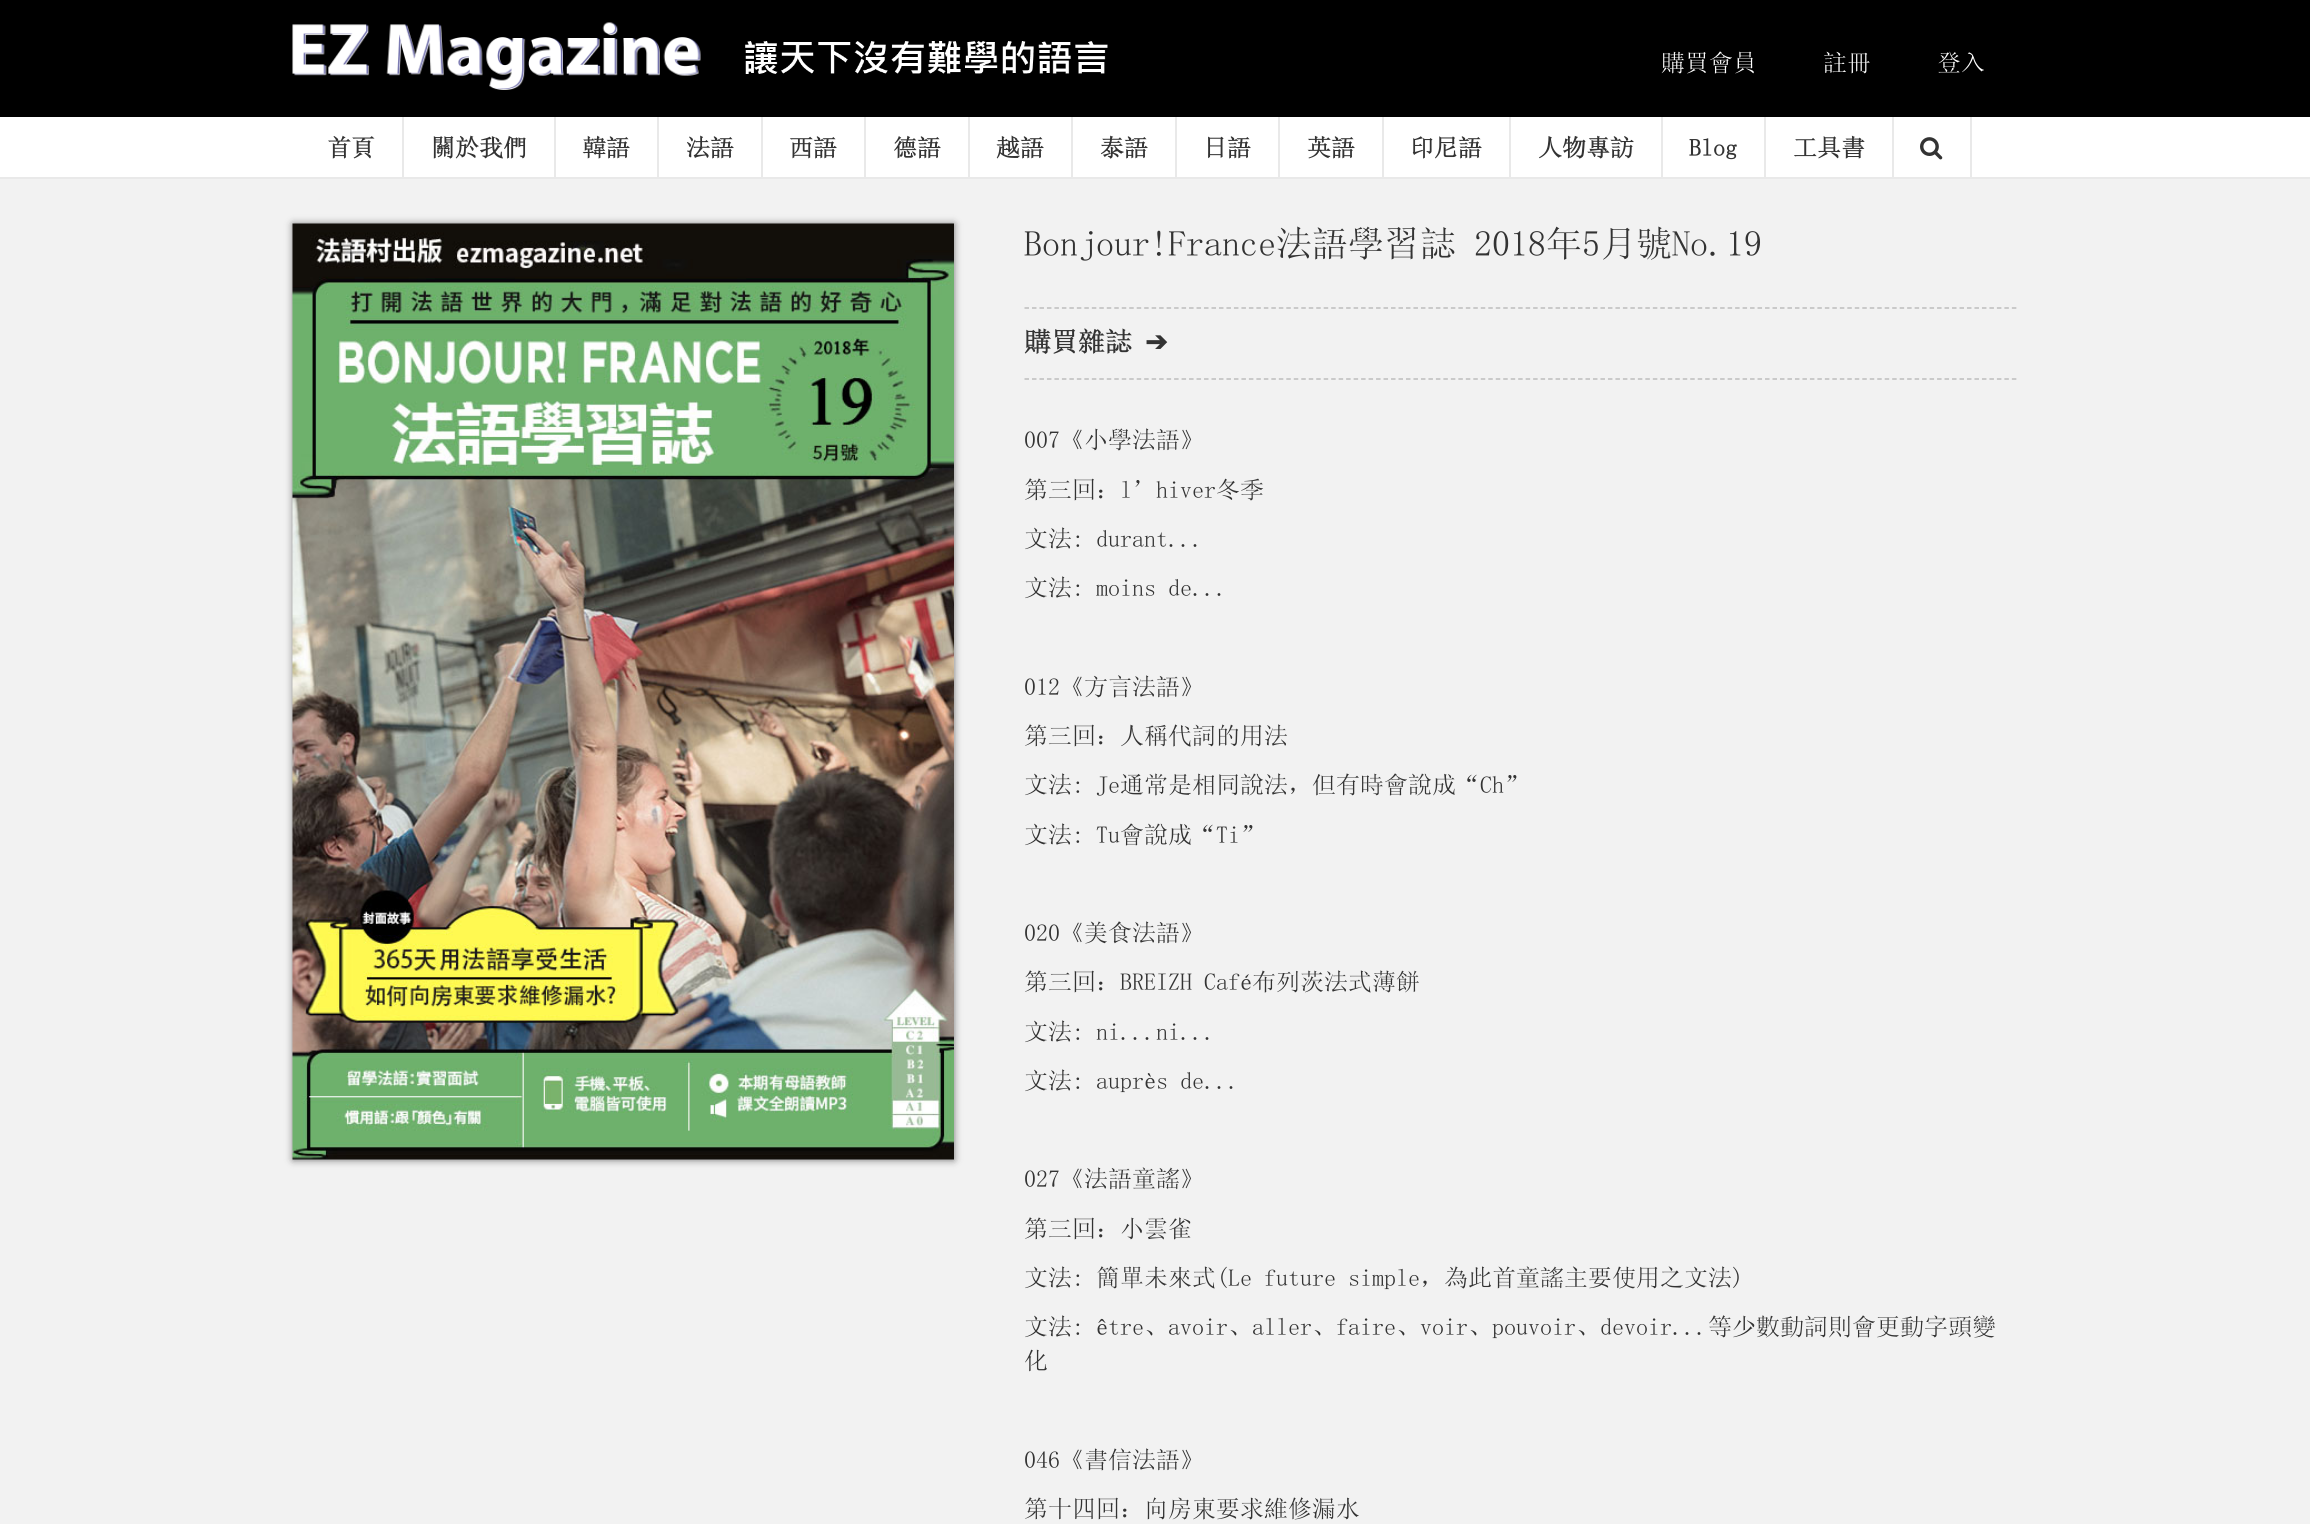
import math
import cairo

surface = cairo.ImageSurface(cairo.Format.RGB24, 2310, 1524)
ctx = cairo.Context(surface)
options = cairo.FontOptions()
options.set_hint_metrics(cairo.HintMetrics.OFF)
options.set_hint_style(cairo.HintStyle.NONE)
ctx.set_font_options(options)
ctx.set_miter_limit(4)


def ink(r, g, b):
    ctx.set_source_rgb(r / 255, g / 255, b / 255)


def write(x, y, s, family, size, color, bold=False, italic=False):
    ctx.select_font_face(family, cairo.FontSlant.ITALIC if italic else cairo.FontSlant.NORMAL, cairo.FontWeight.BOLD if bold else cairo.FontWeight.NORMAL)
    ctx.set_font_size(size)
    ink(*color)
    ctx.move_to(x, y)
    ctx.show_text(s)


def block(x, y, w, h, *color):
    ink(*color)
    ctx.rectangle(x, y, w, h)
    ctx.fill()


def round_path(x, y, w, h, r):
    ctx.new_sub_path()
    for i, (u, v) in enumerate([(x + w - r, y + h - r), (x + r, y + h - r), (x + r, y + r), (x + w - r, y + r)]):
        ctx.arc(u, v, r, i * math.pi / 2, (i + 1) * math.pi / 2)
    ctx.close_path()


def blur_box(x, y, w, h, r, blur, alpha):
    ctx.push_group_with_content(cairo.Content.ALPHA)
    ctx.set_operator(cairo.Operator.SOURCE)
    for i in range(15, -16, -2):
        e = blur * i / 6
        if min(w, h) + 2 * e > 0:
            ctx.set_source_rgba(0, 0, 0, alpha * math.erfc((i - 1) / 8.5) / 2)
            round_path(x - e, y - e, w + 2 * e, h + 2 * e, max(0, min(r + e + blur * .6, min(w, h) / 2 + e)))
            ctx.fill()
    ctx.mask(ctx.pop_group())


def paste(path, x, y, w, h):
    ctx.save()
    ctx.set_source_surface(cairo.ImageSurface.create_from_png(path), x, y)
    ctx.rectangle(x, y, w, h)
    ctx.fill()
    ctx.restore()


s1 = dict(family="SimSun", size=24, color=(255, 255, 255))
s2 = dict(family="SimSun", size=24, color=(51, 51, 51), bold=True)
s3 = dict(family="SimSun", size=36, color=(51, 51, 51))
s4 = dict(family="SimSun", size=27, color=(51, 51, 51), bold=True)
s5 = dict(family="DejaVu Sans", size=27, color=(51, 51, 51), bold=True)
s6 = dict(family="SimSun", size=24, color=(51, 51, 51))

ink(242, 242, 242)
ctx.paint()
block(0, 0, 2310, 117, 0, 0, 0)
paste("pic1.png", 292, 22, 409, 68)
paste("pic2.png", 745, 41, 363, 33)
write(1661, 71, "購買會員", **s1)
write(1823, 71, "註冊", **s1)
write(1937, 71, "登入", **s1)
block(0, 117, 2310, 60, 255, 255, 255)
block(0, 177, 2310, 2, 233, 233, 233)
block(402, 117, 2, 60, 233, 233, 233)
write(327, 156, "首頁", **s2)
block(554, 117, 2, 60, 233, 233, 233)
write(431, 156, "關於我們", **s2)
block(657, 117, 2, 60, 233, 233, 233)
write(582, 156, "韓語", **s2)
block(761, 117, 2, 60, 233, 233, 233)
write(686, 156, "法語", **s2)
block(864, 117, 2, 60, 233, 233, 233)
write(789, 156, "西語", **s2)
block(968, 117, 2, 60, 233, 233, 233)
write(893, 156, "德語", **s2)
block(1071, 117, 2, 60, 233, 233, 233)
write(996, 156, "越語", **s2)
block(1175, 117, 2, 60, 233, 233, 233)
write(1100, 156, "泰語", **s2)
block(1278, 117, 2, 60, 233, 233, 233)
write(1203, 156, "日語", **s2)
block(1382, 117, 2, 60, 233, 233, 233)
write(1307, 156, "英語", **s2)
block(1509, 117, 2, 60, 233, 233, 233)
write(1410, 156, "印尼語", **s2)
block(1661, 117, 2, 60, 233, 233, 233)
write(1538, 156, "人物專訪", **s2)
block(1764, 117, 2, 60, 233, 233, 233)
write(1689, 156, "Blog", **s2)
block(1892, 117, 2, 60, 233, 233, 233)
write(1793, 156, "工具書", **s2)
block(1970, 117, 2, 60, 233, 233, 233)
paste("pic3.png", 1920, 137, 23, 23)
ink(0, 0, 0)
blur_box(293, 224, 661, 936, 0, 4, 0.5)
paste("pic4.png", 292, 223, 662, 937)
write(1024, 256, "Bonjour!France法語學習誌 2018年5月號No.19", **s3)
ctx.new_path()
ctx.move_to(1024.5, 308)
ctx.line_to(2017.5, 308)
ink(189, 189, 189)
ctx.set_line_width(1.5)
ctx.set_dash([4.5, 2.98])
ctx.stroke()
ctx.new_path()
ctx.move_to(1024.5, 379)
ctx.line_to(2017.5, 379)
ctx.stroke()
write(1024, 351, "購買雜誌", **s4)
write(1145, 351, "➔", **s5)
write(1024, 448, "007《小學法語》", **s6)
write(1024, 498, "第三回：l’hiver冬季", **s6)
write(1024, 547, "文法: durant...", **s6)
write(1024, 596, "文法: moins de...", **s6)
write(1024, 695, "012《方言法語》", **s6)
write(1024, 744, "第三回：人稱代詞的用法", **s6)
write(1024, 793, "文法: Je通常是相同說法，但有時會說成“Ch”", **s6)
write(1024, 843, "文法: Tu會說成“Ti”", **s6)
write(1024, 941, "020《美食法語》", **s6)
write(1024, 990, "第三回：BREIZH Café布列茨法式薄餅", **s6)
write(1024, 1040, "文法: ni...ni...", **s6)
write(1024, 1089, "文法: auprès de...", **s6)
write(1024, 1187, "027《法語童謠》", **s6)
write(1024, 1237, "第三回：小雲雀", **s6)
write(1024, 1286, "文法: 簡單未來式(Le future simple，為此首童謠主要使用之文法)", **s6)
write(1024, 1335, "文法: être、avoir、aller、faire、voir、pouvoir、devoir...等少數動詞則會更動字頭變", **s6)
write(1024, 1369, "化", **s6)
write(1024, 1468, "046《書信法語》", **s6)
write(1024, 1517, "第十四回：向房東要求維修漏水", **s6)
surface.write_to_png("screenshot.png")
